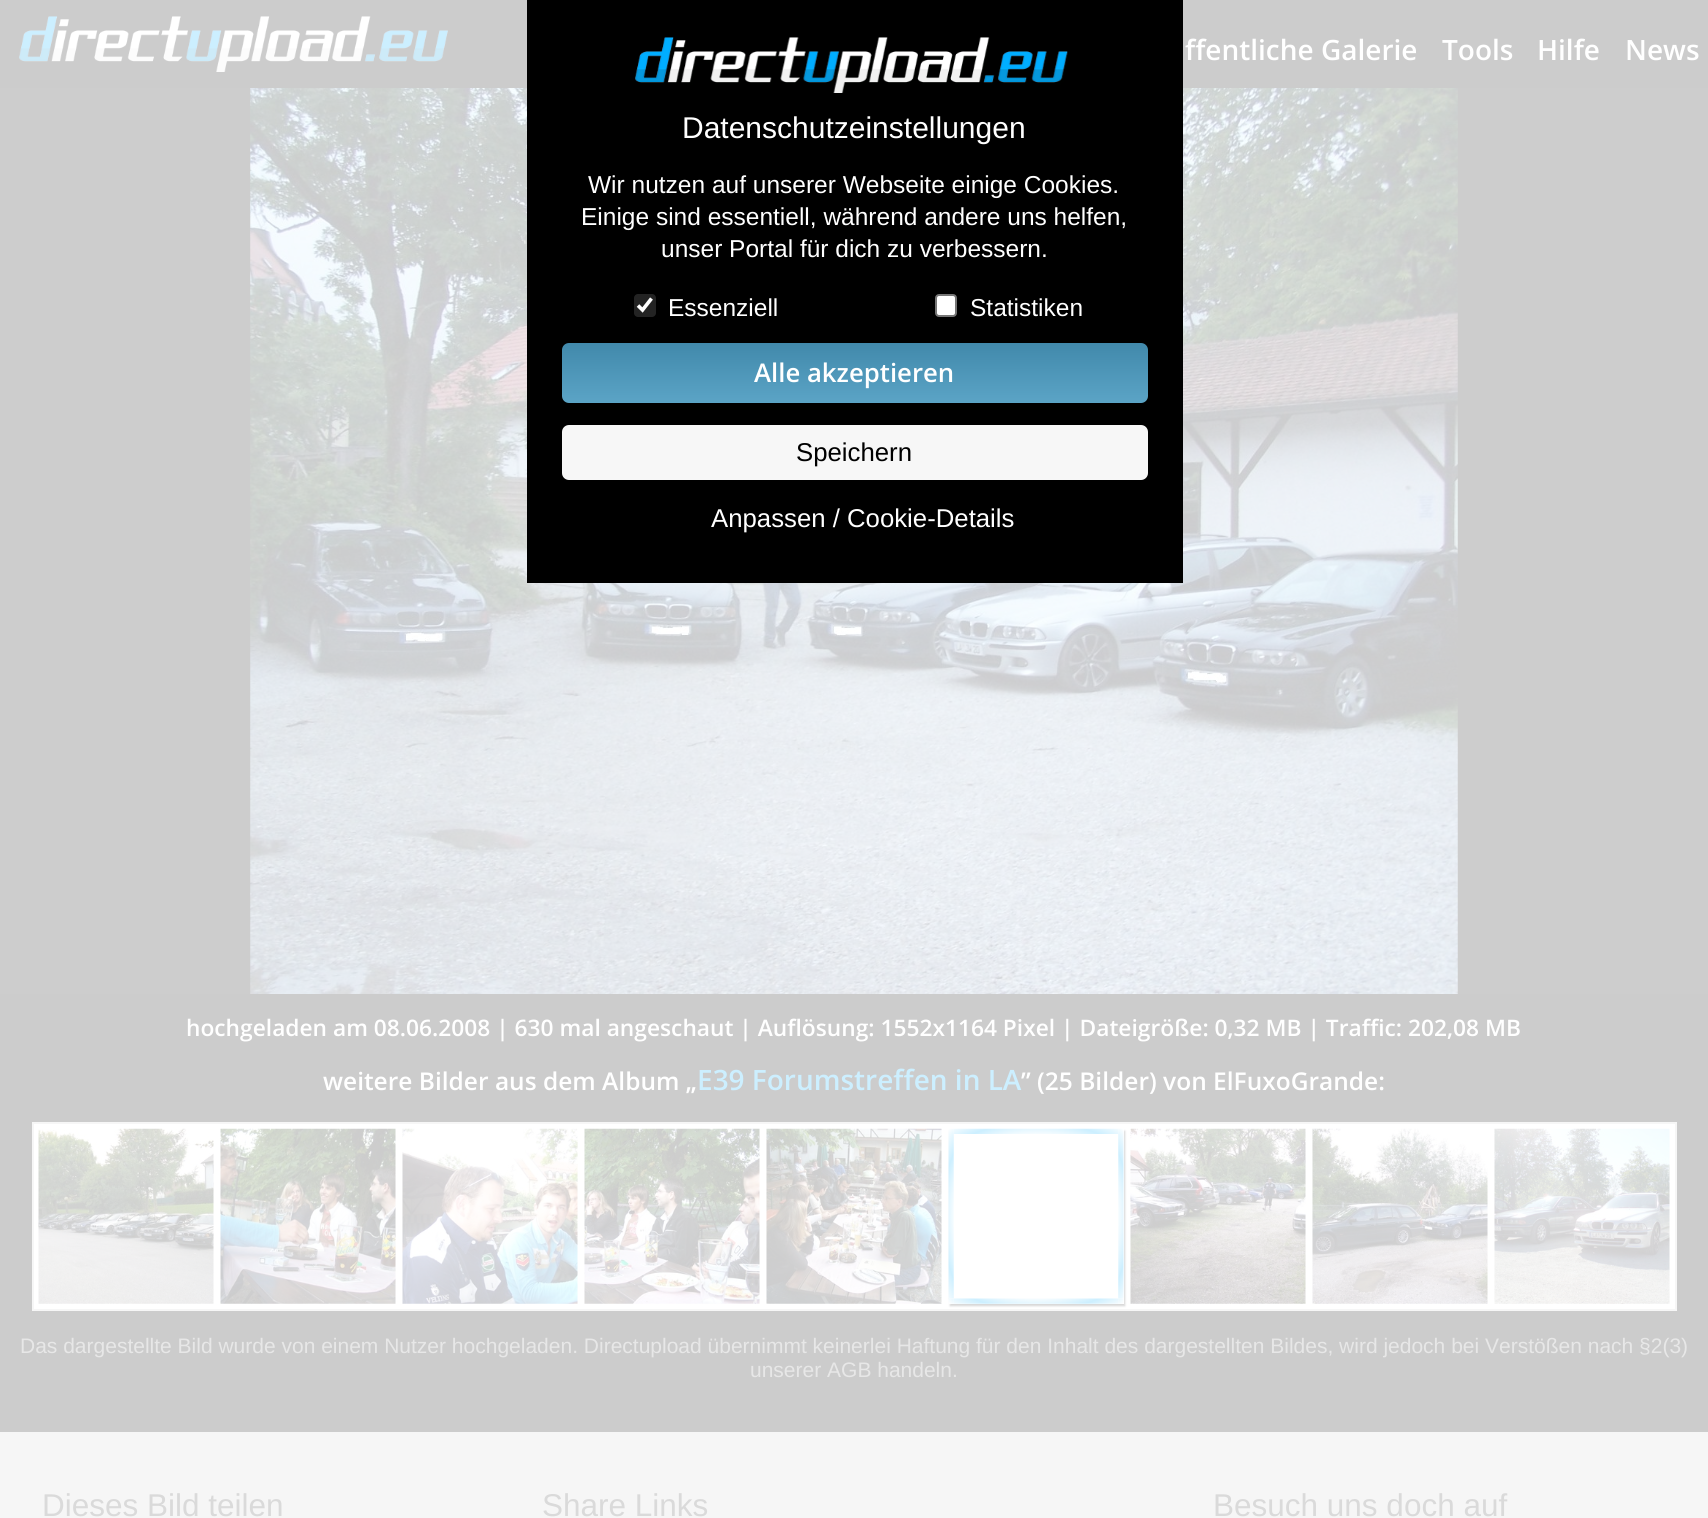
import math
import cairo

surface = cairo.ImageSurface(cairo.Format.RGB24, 1708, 1518)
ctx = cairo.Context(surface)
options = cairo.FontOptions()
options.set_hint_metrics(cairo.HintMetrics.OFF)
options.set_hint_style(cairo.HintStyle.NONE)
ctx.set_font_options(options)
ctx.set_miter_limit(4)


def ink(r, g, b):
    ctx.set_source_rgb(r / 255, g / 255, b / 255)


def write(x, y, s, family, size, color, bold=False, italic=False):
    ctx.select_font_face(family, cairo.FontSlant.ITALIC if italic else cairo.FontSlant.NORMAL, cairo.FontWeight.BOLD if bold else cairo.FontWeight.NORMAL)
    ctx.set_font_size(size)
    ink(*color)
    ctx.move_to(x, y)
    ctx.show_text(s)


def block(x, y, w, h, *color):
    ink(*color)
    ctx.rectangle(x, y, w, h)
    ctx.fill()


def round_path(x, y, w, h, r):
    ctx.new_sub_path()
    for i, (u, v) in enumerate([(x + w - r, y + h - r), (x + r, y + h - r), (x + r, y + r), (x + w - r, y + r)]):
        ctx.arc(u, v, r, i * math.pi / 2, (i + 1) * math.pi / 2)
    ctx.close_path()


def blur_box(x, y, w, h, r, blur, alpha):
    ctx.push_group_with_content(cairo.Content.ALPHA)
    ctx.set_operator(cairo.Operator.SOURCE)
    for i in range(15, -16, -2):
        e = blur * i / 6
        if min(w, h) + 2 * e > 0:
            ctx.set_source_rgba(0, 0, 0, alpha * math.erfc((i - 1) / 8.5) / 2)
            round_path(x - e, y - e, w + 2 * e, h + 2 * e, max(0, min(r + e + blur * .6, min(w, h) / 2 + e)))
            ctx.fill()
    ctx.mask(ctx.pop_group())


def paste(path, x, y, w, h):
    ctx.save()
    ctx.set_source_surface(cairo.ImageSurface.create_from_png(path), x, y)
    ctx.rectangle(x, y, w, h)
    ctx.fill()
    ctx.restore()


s1 = dict(family="Open Sans SemiBold", size=28, color=(255, 255, 255))
s2 = dict(family="Liberation Sans", size=30, color=(255, 255, 255))
s3 = dict(family="Liberation Sans", size=24.5, color=(255, 255, 255))
s4 = dict(family="Open Sans SemiBold", size=25.75, color=(255, 255, 255))
s5 = dict(family="Liberation Sans", size=25.75, color=(0, 0, 0))
s6 = dict(family="Liberation Sans", size=25.75, color=(255, 255, 255))
s7 = dict(family="Open Sans SemiBold", size=22.75, color=(255, 255, 255))
s8 = dict(family="Open Sans SemiBold", size=24.5, color=(255, 255, 255))
s9 = dict(family="Open Sans SemiBold", size=28, color=(204, 239, 255))
s10 = dict(family="Liberation Sans", size=21, color=(231, 231, 231))
s11 = dict(family="Liberation Sans", size=31.5, color=(218, 218, 218))

ink(255, 255, 255)
ctx.paint()
paste("pic1.png", 0, 88, 1708, 906)
block(0, 0, 1708, 88, 204, 204, 204)
paste("pic2.png", 19, 16, 429, 56)
write(1185, 60, "ffentliche Galerie", **s1)
write(1442, 60, "Tools", **s1)
write(1537, 60, "Hilfe", **s1)
write(1625, 60, "News", **s1)
ctx.set_source_rgba(0.8, 0.8, 0.8, 0.98)
ctx.rectangle(0, 88, 1708, 906)
ctx.fill()
paste("pic3.png", 250, 88, 1208, 906)
block(527, 0, 656, 583, 0, 0, 0)
paste("pic4.png", 635, 37, 433, 56)
write(682, 138, "Datenschutzeinstellungen", **s2)
write(588, 193, "Wir nutzen auf unserer Webseite einige Cookies.", **s3)
write(581, 225, "Einige sind essentiell, während andere uns helfen,", **s3)
write(661, 257, "unser Portal für dich zu verbessern.", **s3)
ink(35, 35, 35)
round_path(634, 294, 22, 23, 4)
ctx.fill()
ctx.new_path()
ctx.move_to(638, 305.5)
ctx.line_to(642.5, 310)
ctx.line_to(651.5, 298.5)
ink(255, 255, 255)
ctx.set_line_width(3.6)
ctx.stroke()
write(668, 316, "Essenziell", **s3)
round_path(936, 295, 20, 21, 3)
ctx.fill_preserve()
ink(118, 118, 118)
ctx.set_line_width(2)
ctx.stroke()
write(970, 316, "Statistiken", **s3)
gradient = cairo.LinearGradient(855, 343, 855, 403)
gradient.add_color_stop_rgba(0, 0.255, 0.537, 0.671, 1)
gradient.add_color_stop_rgba(1, 0.357, 0.643, 0.776, 1)
ctx.set_source(gradient)
round_path(562, 343, 586, 60, 7)
ctx.fill()
write(754, 382, "Alle akzeptieren", **s4)
ink(247, 247, 247)
round_path(562, 425, 586, 55, 7)
ctx.fill()
write(796, 461, "Speichern", **s5)
write(711, 527, "Anpassen / Cookie-Details", **s6)
block(0, 994, 1708, 438, 204, 204, 204)
write(186, 1036, "hochgeladen am 08.06.2008 | 630 mal angeschaut | Auflösung: 1552x1164 Pixel | Dateigröße: 0,32 MB | Traffic: 202,08 MB", **s7)
write(323, 1090, "weitere Bilder aus dem Album „", **s8)
write(697, 1090, "E39 Forumstreffen in LA", **s9)
write(1021, 1090, "” (25 Bilder) von ElFuxoGrande:", **s8)
ctx.rectangle(33, 1123, 1643, 187)
ctx.fill_preserve()
ink(246, 246, 246)
ctx.stroke()
paste("pic5.png", 38, 1128, 176, 176)
paste("pic6.png", 220, 1128, 176, 176)
paste("pic7.png", 402, 1128, 176, 176)
paste("pic8.png", 584, 1128, 176, 176)
paste("pic9.png", 766, 1128, 176, 176)
ctx.save()
ctx.set_fill_rule(cairo.FillRule.EVEN_ODD)
ctx.new_path()
ctx.move_to(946, 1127)
ctx.line_to(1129, 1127)
ctx.line_to(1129, 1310)
ctx.line_to(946, 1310)
ctx.close_path()
ctx.move_to(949, 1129)
ctx.line_to(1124, 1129)
ctx.line_to(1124, 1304)
ctx.line_to(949, 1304)
ctx.close_path()
ctx.clip()
ink(204, 204, 204)
blur_box(950, 1131, 175, 175, 0, 1, 0.8)
ctx.restore()
paste("pic10.png", 948, 1128, 176, 176)
paste("pic11.png", 1130, 1128, 176, 176)
paste("pic12.png", 1312, 1128, 176, 176)
paste("pic13.png", 1494, 1128, 176, 176)
write(20, 1353, "Das dargestellte Bild wurde von einem Nutzer hochgeladen. Directupload übernimmt keinerlei Haftung für den Inhalt des dargestellten Bildes, wird jedoch bei Verstößen nach §2(3)", **s10)
write(750, 1377, "unserer AGB handeln.", **s10)
block(0, 1432, 1708, 86, 246, 246, 246)
write(42, 1516, "Dieses Bild teilen", **s11)
write(542, 1516, "Share Links", **s11)
write(1213, 1516, "Besuch uns doch auf", **s11)
surface.write_to_png("screenshot.png")
